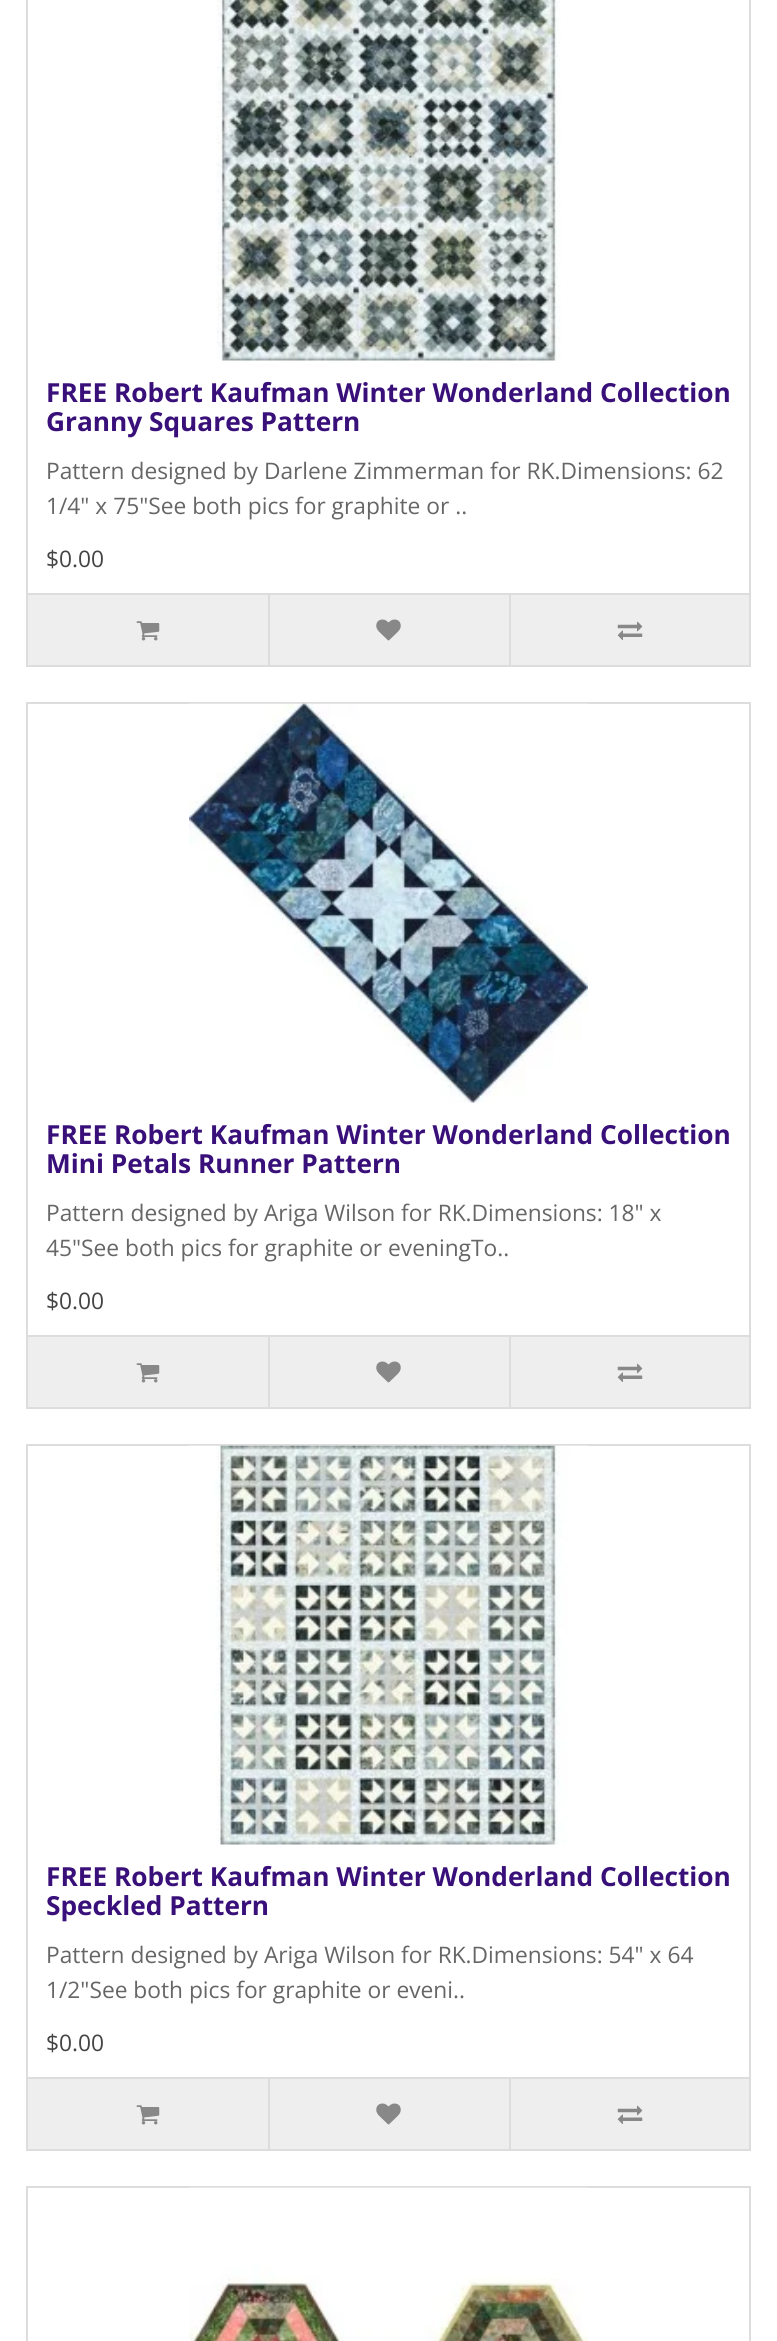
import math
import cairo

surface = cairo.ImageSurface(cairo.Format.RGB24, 777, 2341)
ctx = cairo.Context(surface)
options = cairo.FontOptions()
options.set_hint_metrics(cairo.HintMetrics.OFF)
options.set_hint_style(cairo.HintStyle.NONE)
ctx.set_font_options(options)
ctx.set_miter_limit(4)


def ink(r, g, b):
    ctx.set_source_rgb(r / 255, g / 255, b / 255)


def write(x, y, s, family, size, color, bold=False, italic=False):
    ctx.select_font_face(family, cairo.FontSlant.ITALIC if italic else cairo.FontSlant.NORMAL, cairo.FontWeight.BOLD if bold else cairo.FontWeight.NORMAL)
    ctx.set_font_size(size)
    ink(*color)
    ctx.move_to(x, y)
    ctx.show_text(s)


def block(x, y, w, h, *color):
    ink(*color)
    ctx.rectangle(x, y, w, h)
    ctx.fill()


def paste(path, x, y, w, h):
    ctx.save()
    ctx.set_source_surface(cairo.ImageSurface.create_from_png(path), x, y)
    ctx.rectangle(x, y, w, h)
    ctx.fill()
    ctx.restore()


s1 = dict(family="Open Sans", size=26.25, color=(57, 16, 122), bold=True)
s2 = dict(family="Open Sans", size=22.75, color=(102, 102, 102))
s3 = dict(family="Open Sans", size=22.75, color=(68, 68, 68))

ink(255, 255, 255)
ctx.paint()
ctx.rectangle(27, -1, 723, 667)
ink(221, 221, 221)
ctx.stroke()
paste("pic1.png", 216, 0, 345, 361)
write(46, 402, "FREE Robert Kaufman Winter Wonderland Collection", **s1)
write(46, 431, "Granny Squares Pattern", **s1)
write(46, 479, "Pattern designed by Darlene Zimmerman for RK.Dimensions: 62", **s2)
write(46, 514, "1/4\" x 75\"See both pics for graphite or ..", **s2)
write(46, 567, "$0.00", **s3)
block(28, 595, 721, 70, 238, 238, 238)
block(28, 593, 721, 2, 221, 221, 221)
paste("pic2.png", 136, 621, 24, 20)
block(268, 595, 2, 70, 221, 221, 221)
paste("pic3.png", 376, 619, 25, 22)
block(509, 595, 2, 70, 221, 221, 221)
paste("pic4.png", 617, 621, 26, 19)
ctx.rectangle(27, 703, 723, 705)
ctx.stroke()
paste("pic5.png", 189, 703, 399, 400)
write(46, 1144, "FREE Robert Kaufman Winter Wonderland Collection", **s1)
write(46, 1173, "Mini Petals Runner Pattern", **s1)
write(46, 1221, "Pattern designed by Ariga Wilson for RK.Dimensions: 18\" x", **s2)
write(46, 1256, "45\"See both pics for graphite or eveningTo..", **s2)
write(46, 1309, "$0.00", **s3)
block(28, 1337, 721, 70, 238, 238, 238)
block(28, 1335, 721, 2, 221, 221, 221)
paste("pic2.png", 136, 1363, 24, 20)
block(268, 1337, 2, 70, 221, 221, 221)
paste("pic3.png", 376, 1361, 25, 22)
block(509, 1337, 2, 70, 221, 221, 221)
paste("pic4.png", 617, 1363, 26, 19)
ctx.rectangle(27, 1445, 723, 705)
ctx.stroke()
paste("pic6.png", 189, 1445, 399, 400)
write(46, 1886, "FREE Robert Kaufman Winter Wonderland Collection", **s1)
write(46, 1915, "Speckled Pattern", **s1)
write(46, 1963, "Pattern designed by Ariga Wilson for RK.Dimensions: 54\" x 64", **s2)
write(46, 1998, "1/2\"See both pics for graphite or eveni..", **s2)
write(46, 2051, "$0.00", **s3)
block(28, 2079, 721, 70, 238, 238, 238)
block(28, 2077, 721, 2, 221, 221, 221)
paste("pic2.png", 136, 2105, 24, 20)
block(268, 2079, 2, 70, 221, 221, 221)
paste("pic3.png", 376, 2103, 25, 22)
block(509, 2079, 2, 70, 221, 221, 221)
paste("pic4.png", 617, 2105, 26, 19)
ctx.rectangle(27, 2187, 723, 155)
ctx.stroke()
paste("pic7.png", 189, 2187, 399, 154)
surface.write_to_png("screenshot.png")
